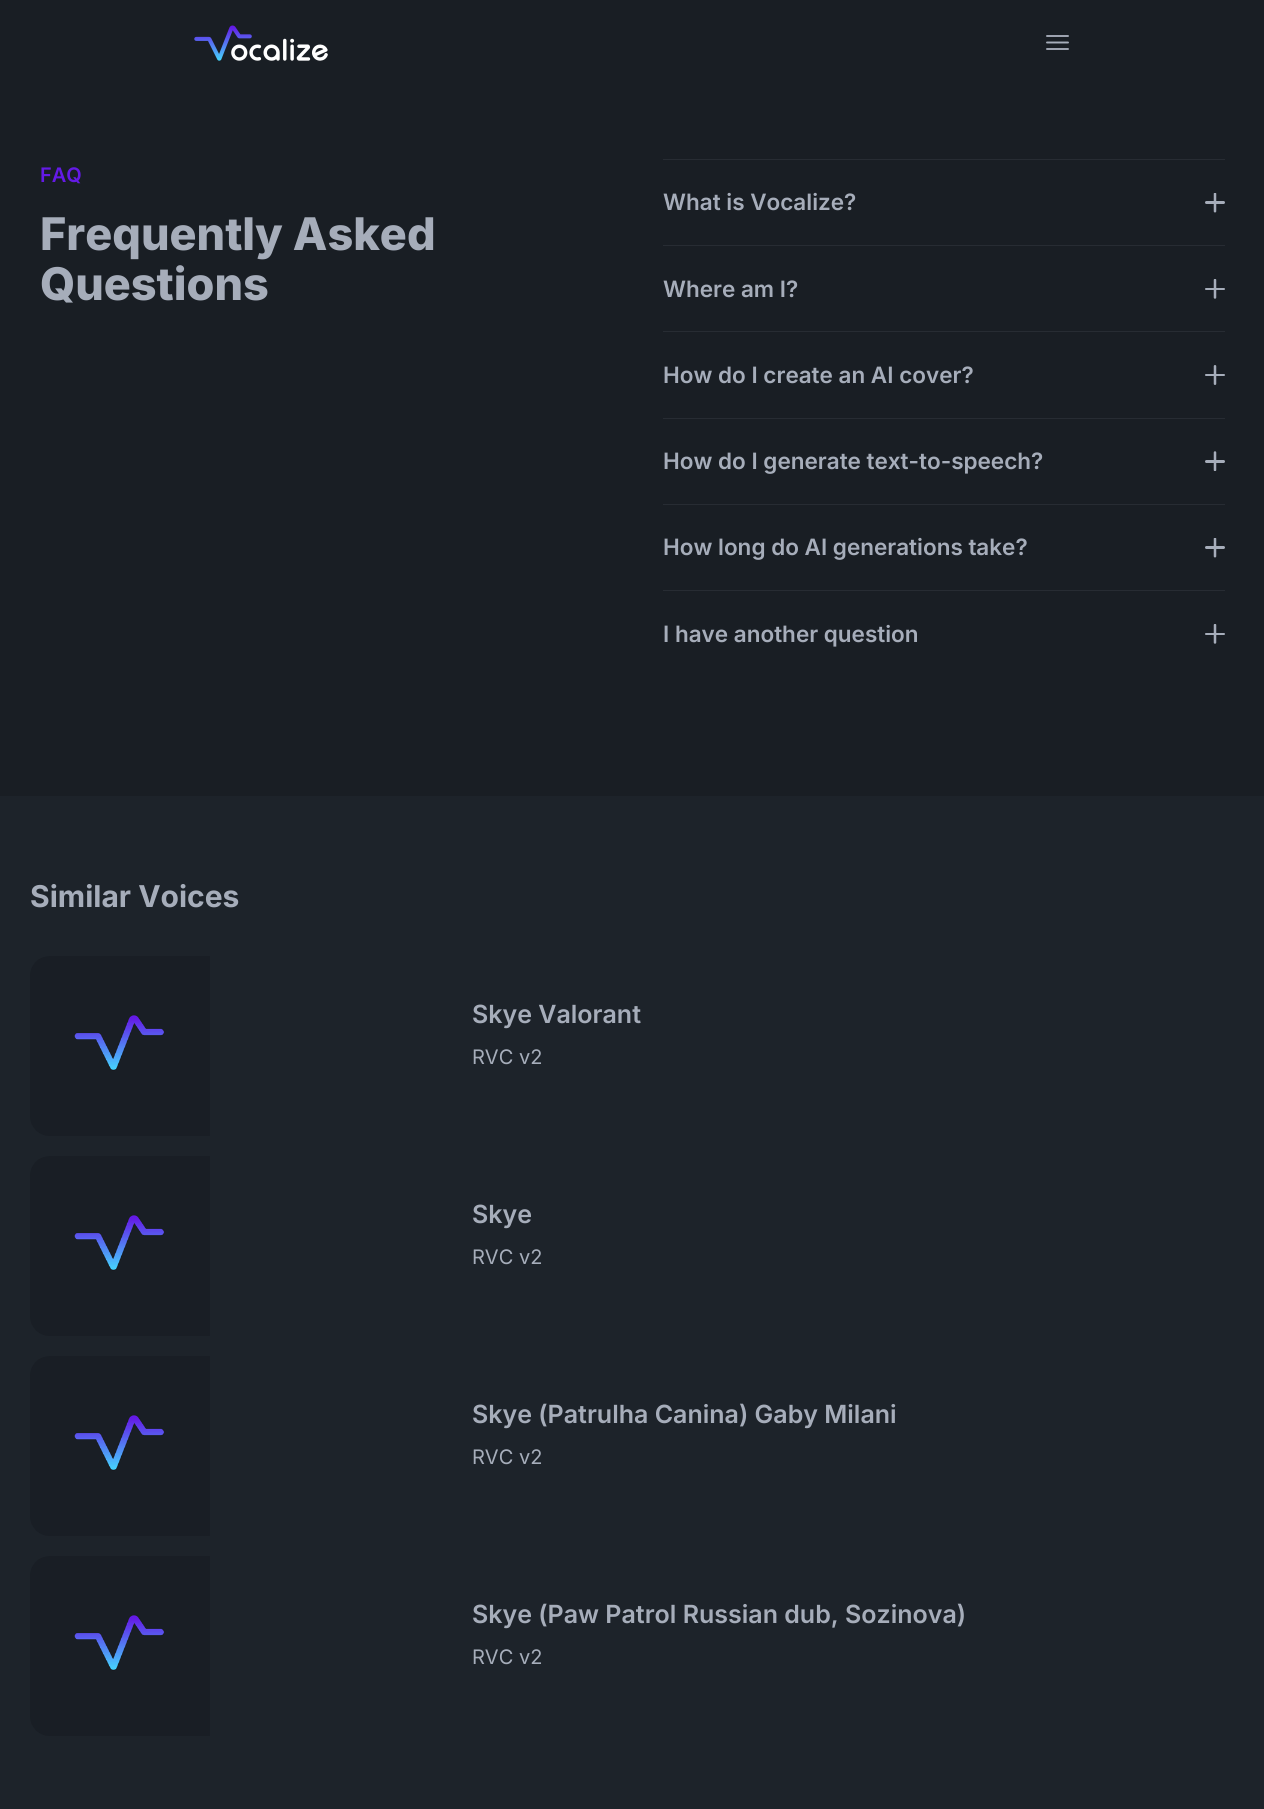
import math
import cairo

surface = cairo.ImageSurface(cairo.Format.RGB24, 1264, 1809)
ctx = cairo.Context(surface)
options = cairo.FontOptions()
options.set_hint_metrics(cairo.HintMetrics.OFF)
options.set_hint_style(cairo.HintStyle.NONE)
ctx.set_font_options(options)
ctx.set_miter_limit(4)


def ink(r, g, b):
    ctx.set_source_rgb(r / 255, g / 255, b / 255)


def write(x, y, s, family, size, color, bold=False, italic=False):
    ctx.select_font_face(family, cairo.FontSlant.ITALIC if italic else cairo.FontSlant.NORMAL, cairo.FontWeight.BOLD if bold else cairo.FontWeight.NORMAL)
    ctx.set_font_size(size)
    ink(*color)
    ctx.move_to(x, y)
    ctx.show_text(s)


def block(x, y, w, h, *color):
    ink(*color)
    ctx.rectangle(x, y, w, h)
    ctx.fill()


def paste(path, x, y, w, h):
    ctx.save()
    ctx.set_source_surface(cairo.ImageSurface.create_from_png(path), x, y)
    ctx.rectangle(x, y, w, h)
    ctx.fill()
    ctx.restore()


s1 = dict(family="Inter SemiBold", size=20, color=(100, 26, 230))
s2 = dict(family="Inter ExtraBold", size=45, color=(166, 173, 186))
s3 = dict(family="Inter SemiBold", size=22.5, color=(166, 173, 186))
s4 = dict(family="Inter", size=30, color=(166, 173, 186), bold=True)
s5 = dict(family="Inter SemiBold", size=25, color=(166, 173, 186))
s6 = dict(family="Inter", size=20, color=(166, 173, 186))

ink(29, 35, 42)
ctx.paint()
block(0, 0, 1264, 796, 25, 30, 36)
paste("pic1.png", 194, 25, 134, 36)
ctx.new_path()
ctx.move_to(1047, 36)
ctx.line_to(1068, 36)
ctx.move_to(1047, 42.5)
ctx.line_to(1068, 42.5)
ctx.move_to(1047, 49)
ctx.line_to(1068, 49)
ink(166, 173, 186)
ctx.set_line_width(1.9)
ctx.set_line_cap(cairo.LineCap.ROUND)
ctx.set_line_join(cairo.LineJoin.ROUND)
ctx.stroke()
write(40, 182, "FAQ", **s1)
write(40, 250, "Frequently Asked", **s2)
write(40, 300, "Questions", **s2)
block(663, 159, 562, 1, 39, 44, 51)
write(663, 210, "What is Vocalize?", **s3)
paste("pic2.png", 1205, 193, 20, 20)
block(663, 245, 562, 1, 39, 44, 51)
write(663, 297, "Where am I?", **s3)
paste("pic3.png", 1205, 279, 20, 20)
block(663, 331, 562, 1, 39, 44, 51)
write(663, 383, "How do I create an AI cover?", **s3)
paste("pic4.png", 1205, 365, 20, 20)
block(663, 418, 562, 1, 39, 44, 51)
write(663, 469, "How do I generate text-to-speech?", **s3)
paste("pic5.png", 1205, 451, 20, 20)
block(663, 504, 562, 1, 39, 44, 51)
write(663, 555, "How long do AI generations take?", **s3)
paste("pic2.png", 1205, 538, 20, 20)
block(663, 590, 562, 1, 39, 44, 51)
write(663, 642, "I have another question", **s3)
paste("pic3.png", 1205, 624, 20, 20)
write(30, 907, "Similar Voices", **s4)
paste("pic6.png", 30, 956, 180, 180)
write(472, 1023, "Skye Valorant", **s5)
write(472, 1064, "RVC v2", **s6)
paste("pic7.png", 30, 1156, 180, 180)
write(472, 1223, "Skye", **s5)
write(472, 1264, "RVC v2", **s6)
paste("pic7.png", 30, 1356, 180, 180)
write(472, 1423, "Skye (Patrulha Canina) Gaby Milani", **s5)
write(472, 1464, "RVC v2", **s6)
paste("pic7.png", 30, 1556, 180, 180)
write(472, 1623, "Skye (Paw Patrol Russian dub, Sozinova)", **s5)
write(472, 1664, "RVC v2", **s6)
surface.write_to_png("screenshot.png")
